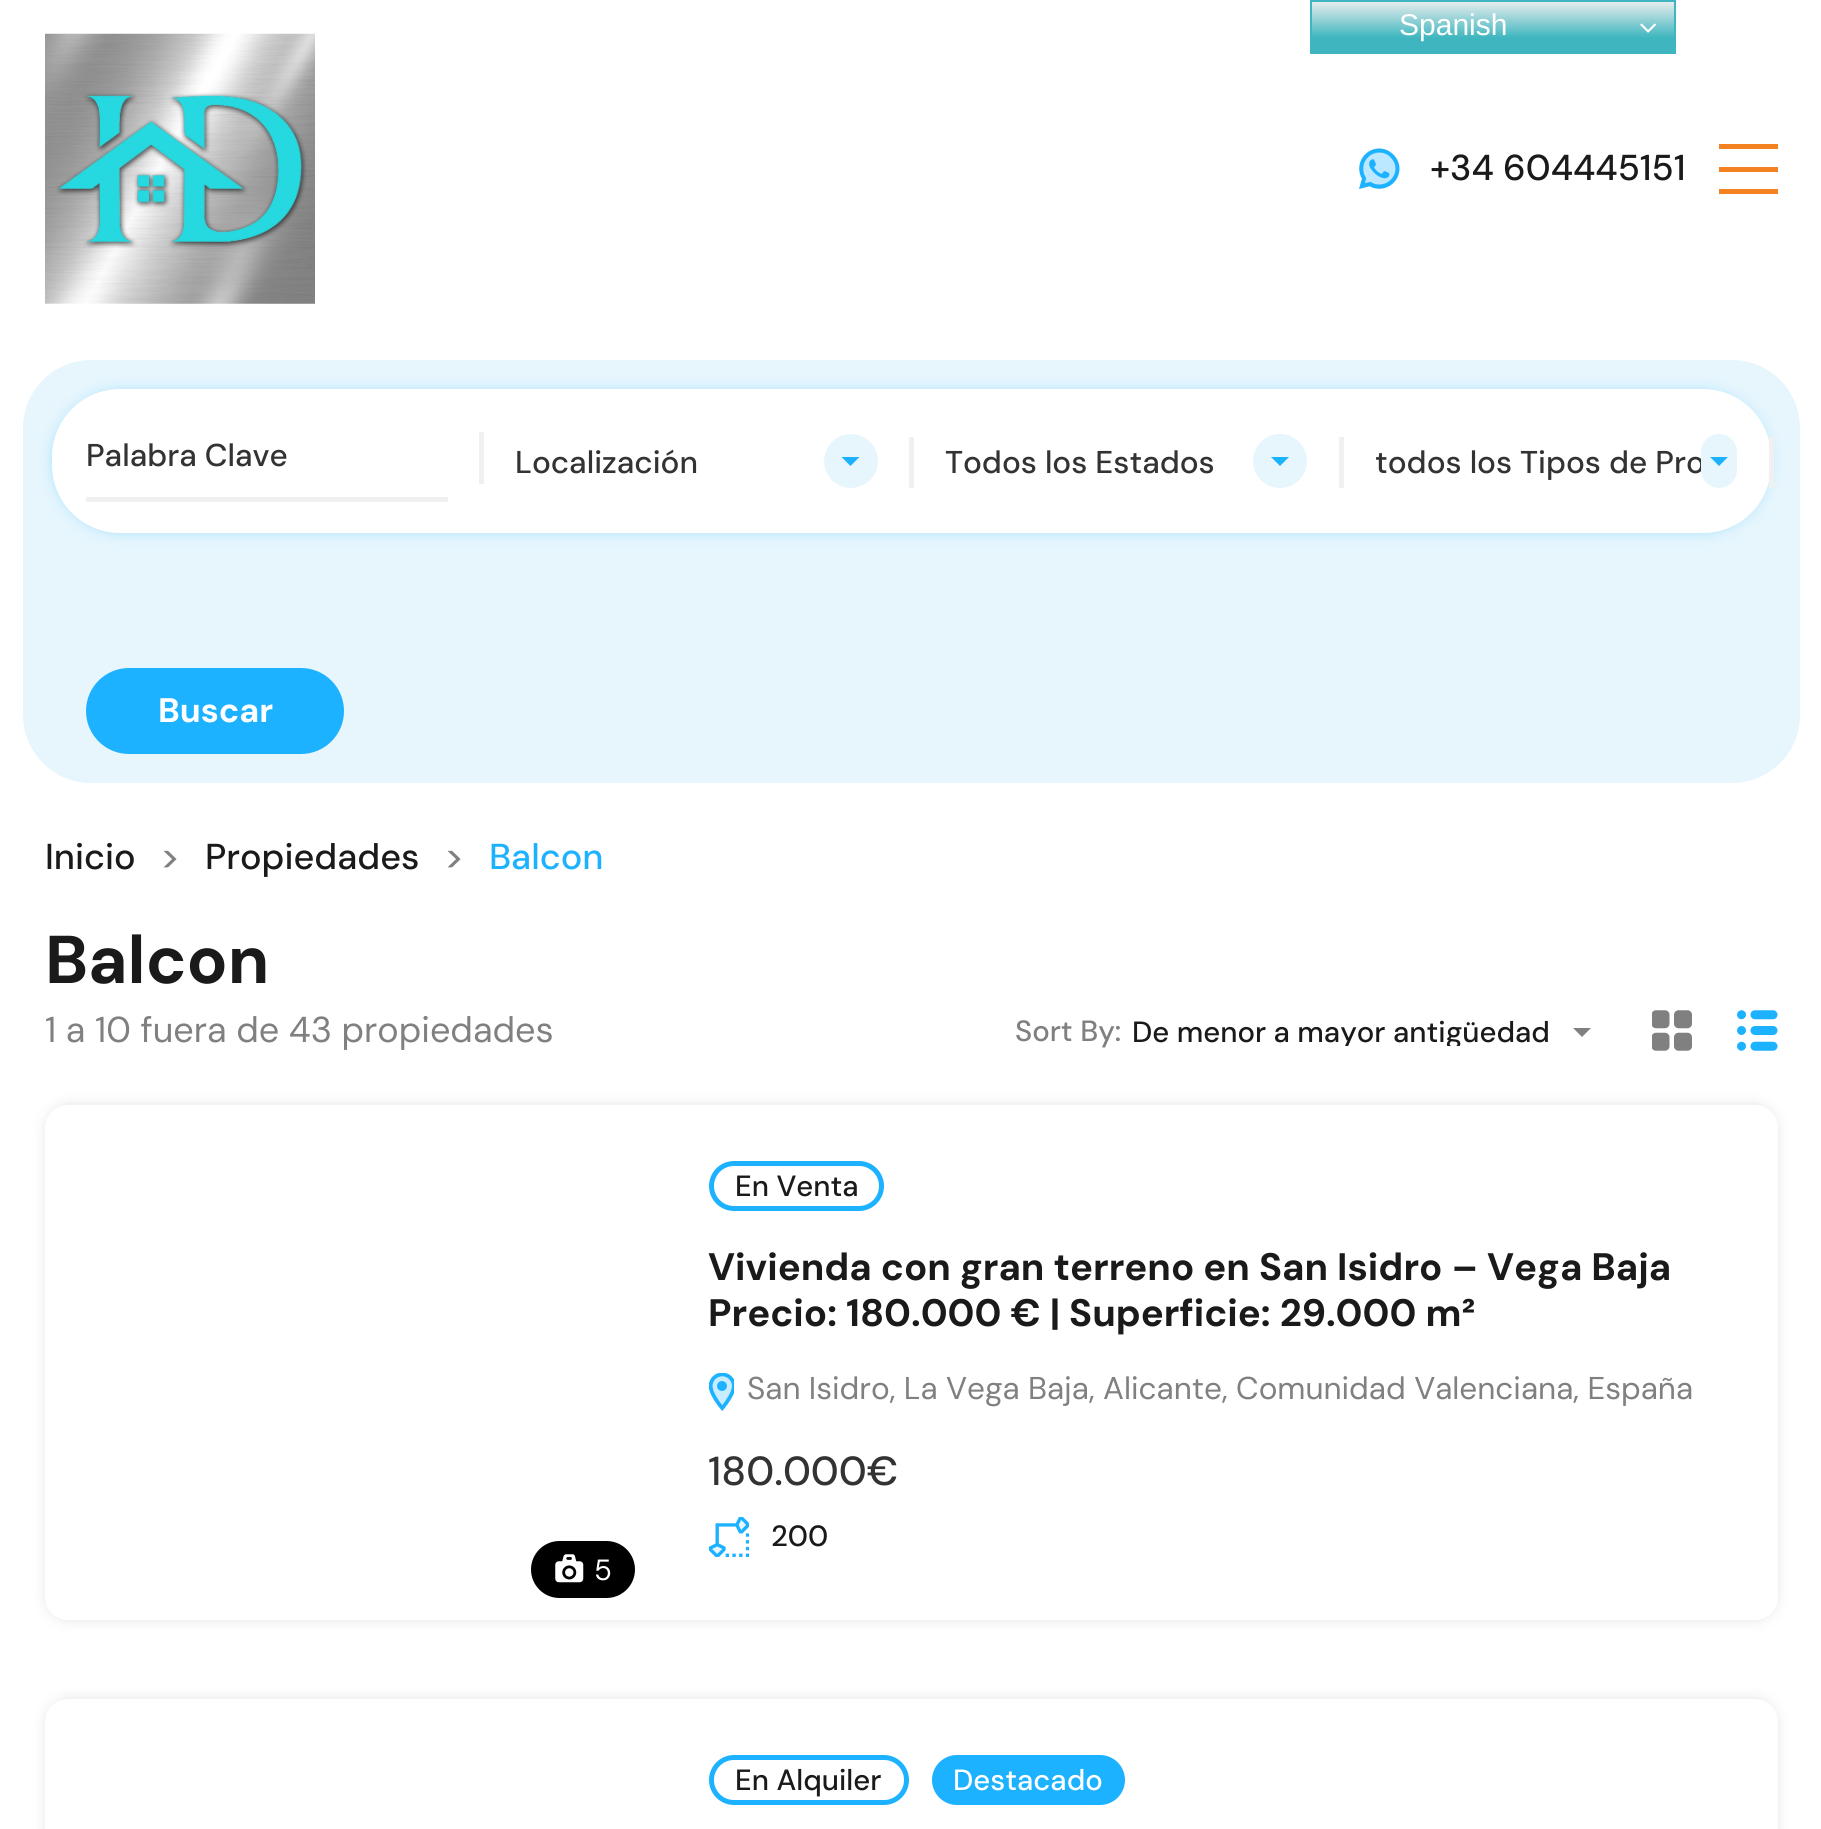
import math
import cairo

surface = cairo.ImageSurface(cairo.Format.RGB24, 1821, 1829)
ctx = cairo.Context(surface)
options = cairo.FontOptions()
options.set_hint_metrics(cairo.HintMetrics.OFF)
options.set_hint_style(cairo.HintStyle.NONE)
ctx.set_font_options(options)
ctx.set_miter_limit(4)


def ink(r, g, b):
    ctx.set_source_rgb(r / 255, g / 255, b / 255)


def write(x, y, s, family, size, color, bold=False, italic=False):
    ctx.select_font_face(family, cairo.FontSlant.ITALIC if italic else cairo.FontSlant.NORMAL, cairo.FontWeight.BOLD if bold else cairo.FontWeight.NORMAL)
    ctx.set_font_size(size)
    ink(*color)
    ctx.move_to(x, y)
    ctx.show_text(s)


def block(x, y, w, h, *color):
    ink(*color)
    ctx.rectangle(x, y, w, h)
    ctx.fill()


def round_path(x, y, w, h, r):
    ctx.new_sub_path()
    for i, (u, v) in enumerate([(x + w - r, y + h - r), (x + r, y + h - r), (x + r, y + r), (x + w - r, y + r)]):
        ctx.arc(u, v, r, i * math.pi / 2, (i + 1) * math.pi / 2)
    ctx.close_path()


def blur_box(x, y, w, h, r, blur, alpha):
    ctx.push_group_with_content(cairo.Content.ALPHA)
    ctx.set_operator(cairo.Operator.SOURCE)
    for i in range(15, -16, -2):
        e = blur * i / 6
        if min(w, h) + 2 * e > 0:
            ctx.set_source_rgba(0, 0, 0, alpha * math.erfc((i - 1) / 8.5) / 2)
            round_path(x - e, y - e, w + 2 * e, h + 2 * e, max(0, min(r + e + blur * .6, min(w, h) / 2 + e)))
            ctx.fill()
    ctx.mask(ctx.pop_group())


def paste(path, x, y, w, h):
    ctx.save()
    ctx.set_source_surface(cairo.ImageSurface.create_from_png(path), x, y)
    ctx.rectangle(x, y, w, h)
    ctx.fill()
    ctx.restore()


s1 = dict(family="Liberation Sans", size=30, color=(255, 255, 255))
s2 = dict(family="DM Sans Medium", size=36, color=(26, 26, 26))
s3 = dict(family="DM Sans Medium", size=31.5, color=(51, 51, 51))
s4 = dict(family="DM Sans", size=34, color=(255, 255, 255), bold=True)
s5 = dict(family="DM Sans Medium", size=36, color=(128, 128, 128))
s6 = dict(family="DM Sans Medium", size=36, color=(29, 178, 255))
s7 = dict(family="DM Sans", size=67.5, color=(26, 26, 26), bold=True)
s8 = dict(family="DM Sans", size=36, color=(128, 128, 128))
s9 = dict(family="DM Sans Medium", size=29.25, color=(128, 128, 128))
s10 = dict(family="DM Sans Medium", size=29.25, color=(26, 26, 26))
s11 = dict(family="DM Sans", size=38.25, color=(26, 26, 26), bold=True)
s12 = dict(family="DM Sans", size=31.5, color=(128, 128, 128))
s13 = dict(family="DM Sans Medium", size=40.5, color=(51, 51, 51))
s14 = dict(family="DM Sans", size=29.25, color=(255, 255, 255))
s15 = dict(family="DM Sans Medium", size=29.25, color=(255, 255, 255))

ink(255, 255, 255)
ctx.paint()
gradient = cairo.LinearGradient(1493, 0, 1493, 54)
gradient.add_color_stop_rgba(0, 0.937, 0.937, 0.937, 1)
gradient.add_color_stop_rgba(0.7, 0.247, 0.714, 0.749, 1)
ctx.set_source(gradient)
ctx.rectangle(1312, 2, 362, 50)
ctx.fill()
ctx.rectangle(1311, 1, 364, 52)
ink(63, 182, 191)
ctx.stroke()
write(1399, 35, "Spanish", **s1)
paste("pic1.png", 1640, 23, 16, 10)
paste("pic2.png", 45, 33, 270, 271)
paste("pic3.png", 1359, 148, 41, 41)
write(1430, 180, "+34 604445151", **s2)
block(1719, 167, 59, 5, 245, 130, 32)
block(1719, 144, 59, 5, 245, 130, 32)
block(1719, 189, 59, 5, 245, 130, 32)
ink(231, 246, 253)
round_path(23, 360, 1777, 423, 68)
ctx.fill()
ink(29, 178, 255)
blur_box(56, 394, 1710, 135, 63, 8, 0.5)
ink(255, 255, 255)
round_path(52, 389, 1719, 144, 68)
ctx.fill()
block(86, 497, 362, 5, 240, 240, 240)
write(86, 466, "Palabra Clave", **s3)
block(479, 432, 5, 52, 240, 240, 240)
write(515, 473, "Localización", **s3)
ink(231, 246, 253)
ctx.new_path()
ctx.arc(851, 461, 27, 0, 2 * math.pi)
ctx.fill()
ink(29, 178, 255)
ctx.new_path()
ctx.move_to(841.5, 457)
ctx.line_to(859.5, 457)
ctx.line_to(850.5, 466)
ctx.close_path()
ctx.fill()
block(909, 437, 5, 51, 240, 240, 240)
write(945, 473, "Todos los Estados", **s3)
ink(231, 246, 253)
ctx.new_path()
ctx.arc(1280, 461, 27, 0, 2 * math.pi)
ctx.fill()
ink(29, 178, 255)
ctx.new_path()
ctx.move_to(1271, 457)
ctx.line_to(1289, 457)
ctx.line_to(1280, 466)
ctx.close_path()
ctx.fill()
block(1339, 437, 5, 51, 240, 240, 240)
write(1375, 473, "todos los Tipos de Pro", **s3)
ink(231, 246, 253)
round_path(1701, 434, 36, 54, 18)
ctx.fill()
ink(29, 178, 255)
ctx.new_path()
ctx.move_to(1710, 457)
ctx.line_to(1728, 457)
ctx.line_to(1719, 466)
ctx.close_path()
ctx.fill()
block(1769, 437, 5, 51, 240, 240, 240)
ink(29, 178, 255)
round_path(88.5, 670.5, 253, 81, 40.5)
ctx.fill_preserve()
ctx.set_line_width(5)
ctx.stroke()
write(158, 722, "Buscar", **s4)
write(45, 869, "Inicio", **s2)
write(160, 869, ">", **s5)
write(205, 869, "Propiedades", **s2)
write(444, 869, ">", **s5)
write(489, 869, "Balcon", **s6)
write(45, 983, "Balcon", **s7)
write(45, 1042, "1 a 10 fuera de 43 propiedades", **s8)
write(1015, 1041, "Sort By:", **s9)
ctx.save()
ctx.rectangle(1132, 1017, 418, 29)
ctx.clip()
write(1132, 1042, "De menor a mayor antigüedad", **s10)
ctx.restore()
ctx.new_path()
ctx.move_to(1573, 1028)
ctx.line_to(1591, 1028)
ctx.line_to(1582, 1037)
ctx.close_path()
ctx.fill()
paste("pic4.png", 1652, 1010, 40, 41)
paste("pic5.png", 1737, 1010, 41, 41)
ctx.save()
ctx.set_fill_rule(cairo.FillRule.EVEN_ODD)
ctx.new_path()
ctx.move_to(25, 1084)
ctx.line_to(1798, 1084)
ctx.line_to(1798, 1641)
ctx.line_to(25, 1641)
ctx.close_path()
ctx.move_to(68, 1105)
ctx.line_to(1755, 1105)
ctx.curve_to(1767.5, 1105, 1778, 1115.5, 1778, 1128)
ctx.line_to(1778, 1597)
ctx.curve_to(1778, 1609.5, 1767.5, 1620, 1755, 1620)
ctx.line_to(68, 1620)
ctx.curve_to(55.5, 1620, 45, 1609.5, 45, 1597)
ctx.line_to(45, 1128)
ctx.curve_to(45, 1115.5, 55.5, 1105, 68, 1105)
ctx.close_path()
ctx.clip()
ink(0, 0, 0)
blur_box(50, 1109, 1723, 507, 18, 8, 0.19)
ctx.restore()
round_path(711.5, 1163.5, 170, 45, 22.5)
ink(29, 178, 255)
ctx.stroke()
write(735, 1196, "En Venta", **s10)
write(708, 1280, "Vivienda con gran terreno en San Isidro – Vega Baja", **s11)
write(708, 1326, "Precio: 180.000 € | Superficie: 29.000 m²", **s11)
paste("pic6.png", 709, 1373, 25, 38)
write(747, 1399, "San Isidro, La Vega Baja, Alicante, Comunidad Valenciana, España", **s12)
write(708, 1485, "180.000€", **s13)
paste("pic7.png", 709, 1517, 40, 40)
write(771, 1546, "200", **s10)
ink(0, 0, 0)
round_path(531, 1541, 104, 57, 28.5)
ctx.fill()
paste("pic8.png", 555, 1554, 29, 29)
write(594, 1580, "5", **s14)
ctx.save()
ctx.set_fill_rule(cairo.FillRule.EVEN_ODD)
ctx.new_path()
ctx.move_to(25, 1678)
ctx.line_to(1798, 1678)
ctx.line_to(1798, 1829)
ctx.line_to(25, 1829)
ctx.close_path()
ctx.move_to(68, 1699)
ctx.line_to(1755, 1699)
ctx.curve_to(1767.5, 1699, 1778, 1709.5, 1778, 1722)
ctx.line_to(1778, 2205)
ctx.curve_to(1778, 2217.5, 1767.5, 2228, 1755, 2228)
ctx.line_to(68, 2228)
ctx.curve_to(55.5, 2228, 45, 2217.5, 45, 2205)
ctx.line_to(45, 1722)
ctx.curve_to(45, 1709.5, 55.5, 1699, 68, 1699)
ctx.close_path()
ctx.clip()
ink(0, 0, 0)
blur_box(50, 1703, 1723, 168, 18, 8, 0.19)
ctx.restore()
round_path(711.5, 1757.5, 195, 45, 22.5)
ink(29, 178, 255)
ctx.stroke()
write(735, 1790, "En Alquiler", **s10)
ink(29, 178, 255)
round_path(932, 1755, 193, 50, 25)
ctx.fill()
write(953, 1790, "Destacado", **s15)
surface.write_to_png("screenshot.png")
